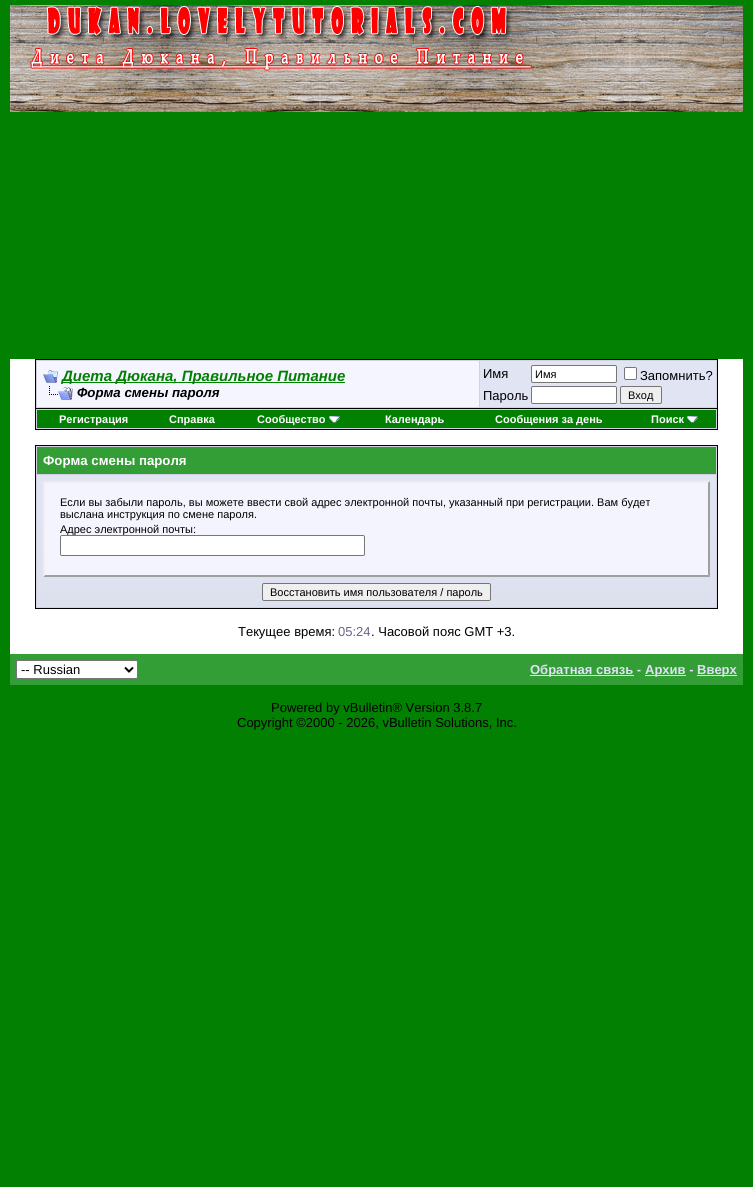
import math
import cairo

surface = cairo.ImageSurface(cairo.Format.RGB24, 753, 1187)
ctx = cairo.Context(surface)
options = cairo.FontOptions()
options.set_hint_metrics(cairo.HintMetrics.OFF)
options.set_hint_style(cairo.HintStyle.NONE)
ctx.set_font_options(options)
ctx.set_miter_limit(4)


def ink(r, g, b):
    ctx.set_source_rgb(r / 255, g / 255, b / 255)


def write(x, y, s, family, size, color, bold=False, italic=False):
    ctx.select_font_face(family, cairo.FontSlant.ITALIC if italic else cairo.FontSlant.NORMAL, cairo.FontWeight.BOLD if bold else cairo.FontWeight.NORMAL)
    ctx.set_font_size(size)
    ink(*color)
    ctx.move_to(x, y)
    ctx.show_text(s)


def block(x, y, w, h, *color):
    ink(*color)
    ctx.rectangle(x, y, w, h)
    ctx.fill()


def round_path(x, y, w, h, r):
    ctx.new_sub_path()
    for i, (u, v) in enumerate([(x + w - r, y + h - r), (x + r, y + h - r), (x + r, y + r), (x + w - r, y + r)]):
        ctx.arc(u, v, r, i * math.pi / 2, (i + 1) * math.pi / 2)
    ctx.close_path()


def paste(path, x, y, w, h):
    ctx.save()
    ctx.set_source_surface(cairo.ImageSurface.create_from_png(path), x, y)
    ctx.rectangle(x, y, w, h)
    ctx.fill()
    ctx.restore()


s1 = dict(family="Liberation Sans", size=15, color=(2, 128, 2), bold=True, italic=True)
s2 = dict(family="Liberation Sans", size=13.25, color=(0, 0, 0), bold=True, italic=True)
s3 = dict(family="Liberation Sans", size=13, color=(0, 0, 0))
s4 = dict(family="Liberation Sans", size=11, color=(0, 0, 0))
s5 = dict(family="Liberation Sans", size=11, color=(255, 255, 255), bold=True)
s6 = dict(family="Liberation Sans", size=13.25, color=(255, 255, 255), bold=True)
s7 = dict(family="Liberation Sans", size=13, color=(102, 102, 134))
s8 = dict(family="Liberation Sans", size=13, color=(224, 224, 246), bold=True)

ink(2, 128, 2)
ctx.paint()
paste("pic1.png", 10, 5, 733, 107)
paste("pic2.png", 30, 6, 502, 65)
block(10, 359, 733, 295, 255, 255, 255)
ink(209, 209, 225)
ctx.rectangle(35.5, 359.5, 682, 49)
ctx.fill_preserve()
ink(0, 0, 0)
ctx.set_line_width(1)
ctx.stroke()
block(37, 361, 442, 46, 245, 245, 255)
paste("pic3.png", 43, 370, 15, 13)
block(62, 382, 283, 1, 2, 128, 2)
write(62, 381, "Диета Дюкана, Правильное Питание", **s1)
paste("pic4.png", 49, 386, 24, 14)
write(77, 397, "Форма смены пароля", **s2)
block(480, 361, 236, 46, 225, 228, 242)
write(483, 378, "Имя", **s3)
ink(255, 255, 255)
round_path(531.5, 365.5, 85, 17, 1.5)
ctx.fill_preserve()
ink(118, 118, 118)
ctx.stroke()
write(535, 378, "Имя", **s4)
ink(255, 255, 255)
round_path(624.5, 367.5, 12, 12, 1.5)
ctx.fill_preserve()
ink(118, 118, 118)
ctx.stroke()
write(640, 380, "Запомнить?", **s3)
write(483, 400, "Пароль", **s3)
ink(255, 255, 255)
round_path(531.5, 386.5, 85, 17, 1.5)
ctx.fill_preserve()
ink(118, 118, 118)
ctx.stroke()
ink(239, 239, 239)
round_path(620.5, 386.5, 41, 17, 1.5)
ctx.fill_preserve()
ink(118, 118, 118)
ctx.stroke()
write(628, 399, "Вход", **s4)
block(36, 409, 681, 20, 209, 209, 225)
block(717, 409, 1, 21, 0, 0, 0)
block(35, 429, 683, 1, 0, 0, 0)
block(35, 409, 1, 21, 0, 0, 0)
block(37, 410, 679, 18, 2, 128, 2)
write(59, 423, "Регистрация", **s5)
write(169, 423, "Справка", **s5)
write(257, 423, "Сообщество", **s5)
paste("pic5.png", 329, 416, 11, 7)
write(385, 423, "Календарь", **s5)
write(495, 423, "Сообщения за день", **s5)
write(651, 423, "Поиск", **s5)
paste("pic5.png", 687, 416, 11, 7)
ink(209, 209, 225)
ctx.rectangle(35.5, 445.5, 682, 163)
ctx.fill_preserve()
ink(0, 0, 0)
ctx.stroke()
block(37, 447, 679, 27, 51, 158, 54)
write(43, 465, "Форма смены пароля", **s6)
paste("pic6.png", 37, 475, 679, 132)
block(43, 483, 667, 94, 244, 244, 254)
ink(238, 238, 238)
ctx.new_path()
ctx.move_to(43, 481)
ctx.line_to(710, 481)
ctx.line_to(708, 483)
ctx.line_to(45, 483)
ctx.close_path()
ctx.fill()
ink(159, 159, 159)
ctx.new_path()
ctx.move_to(710, 481)
ctx.line_to(710, 577)
ctx.line_to(708, 575)
ctx.line_to(708, 483)
ctx.close_path()
ctx.fill()
ctx.new_path()
ctx.move_to(710, 577)
ctx.line_to(43, 577)
ctx.line_to(45, 575)
ctx.line_to(708, 575)
ctx.close_path()
ctx.fill()
ink(238, 238, 238)
ctx.new_path()
ctx.move_to(43, 577)
ctx.line_to(43, 481)
ctx.line_to(45, 483)
ctx.line_to(45, 575)
ctx.close_path()
ctx.fill()
write(60, 506, "Если вы забыли пароль, вы можете ввести свой адрес электронной почты, указанный при регистрации. Вам будет", **s4)
write(60, 518, "выслана инструкция по смене пароля.", **s4)
write(60, 533, "Адрес электронной почты:", **s4)
ink(255, 255, 255)
round_path(60.5, 535.5, 304, 20, 1.5)
ctx.fill_preserve()
ink(118, 118, 118)
ctx.stroke()
ink(239, 239, 239)
round_path(262.5, 583.5, 228, 17, 1.5)
ctx.fill_preserve()
ink(118, 118, 118)
ctx.stroke()
write(270, 596, "Восстановить имя пользователя / пароль", **s4)
write(238, 636, "Текущее время:", **s3)
write(338, 636, "05:24", **s7)
write(371, 636, ". Часовой пояс GMT +3.", **s3)
block(10, 654, 733, 31, 51, 158, 54)
ink(255, 255, 255)
round_path(16.5, 660.5, 121, 18, 1.5)
ctx.fill_preserve()
ink(118, 118, 118)
ctx.stroke()
ctx.new_path()
ctx.move_to(125, 667.5)
ctx.line_to(129, 671.5)
ctx.line_to(133, 667.5)
ink(0, 0, 0)
ctx.set_line_width(2)
ctx.stroke()
write(21, 674, "-- Russian", **s3)
block(530, 675, 104, 1, 224, 224, 246)
write(530, 674, "Обратная связь -", **s8)
block(645, 675, 41, 1, 224, 224, 246)
write(645, 674, "Архив -", **s8)
block(697, 675, 40, 1, 224, 224, 246)
write(697, 674, "Вверх", **s8)
write(271, 712, "Powered by vBulletin® Version 3.8.7", **s3)
write(237, 727, "Copyright ©2000 - 2026, vBulletin Solutions, Inc.", **s3)
surface.write_to_png("screenshot.png")
